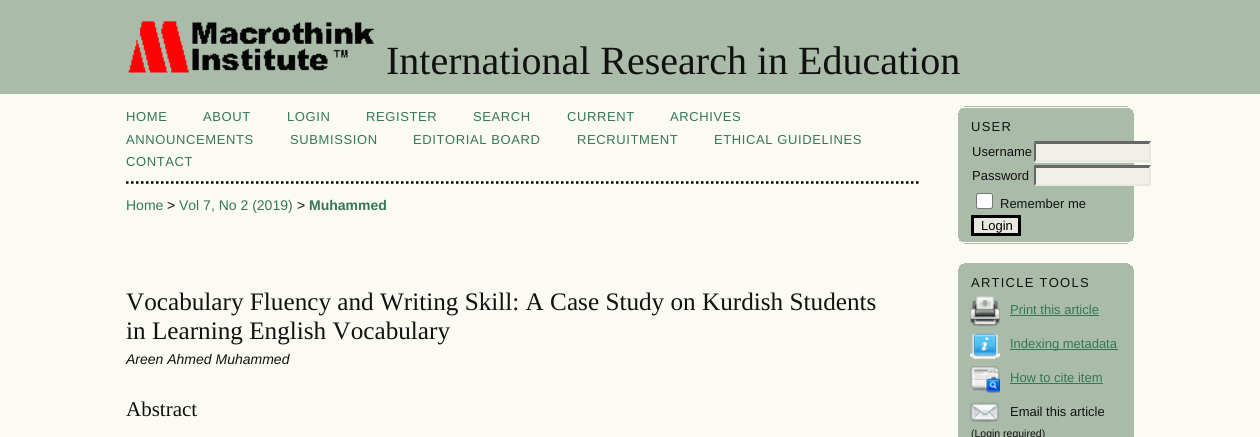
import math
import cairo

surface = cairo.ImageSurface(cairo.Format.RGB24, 1260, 437)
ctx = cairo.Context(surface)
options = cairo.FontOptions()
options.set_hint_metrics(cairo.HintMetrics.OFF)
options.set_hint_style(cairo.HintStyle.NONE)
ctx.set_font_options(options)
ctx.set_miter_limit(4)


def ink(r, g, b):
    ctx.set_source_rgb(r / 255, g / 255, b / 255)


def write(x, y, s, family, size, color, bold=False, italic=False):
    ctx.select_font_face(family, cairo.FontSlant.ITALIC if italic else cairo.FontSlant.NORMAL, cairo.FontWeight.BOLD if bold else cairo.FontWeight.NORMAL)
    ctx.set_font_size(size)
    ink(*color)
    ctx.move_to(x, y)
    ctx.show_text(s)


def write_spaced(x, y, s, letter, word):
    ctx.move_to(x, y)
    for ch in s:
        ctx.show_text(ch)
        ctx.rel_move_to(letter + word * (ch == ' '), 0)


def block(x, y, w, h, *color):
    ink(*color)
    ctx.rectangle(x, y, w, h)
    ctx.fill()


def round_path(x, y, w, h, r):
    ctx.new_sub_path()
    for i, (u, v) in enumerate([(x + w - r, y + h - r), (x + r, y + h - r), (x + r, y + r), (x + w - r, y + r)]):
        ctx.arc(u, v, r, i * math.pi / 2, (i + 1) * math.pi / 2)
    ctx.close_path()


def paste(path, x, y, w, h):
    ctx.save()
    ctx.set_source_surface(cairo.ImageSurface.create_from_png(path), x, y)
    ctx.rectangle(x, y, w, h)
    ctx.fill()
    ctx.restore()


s1 = dict(family="Liberation Serif", size=40, color=(17, 17, 17))
s2 = dict(family="Liberation Sans", size=14, color=(51, 119, 85))
s3 = dict(family="Liberation Sans", size=14, color=(17, 17, 17))
s4 = dict(family="Liberation Sans", size=14, color=(51, 119, 85), bold=True)
s5 = dict(family="Liberation Serif", size=25.2, color=(17, 17, 17))
s6 = dict(family="Liberation Sans", size=14, color=(17, 17, 17), italic=True)
s7 = dict(family="Liberation Serif", size=21, color=(17, 17, 17))
s8 = dict(family="Liberation Sans", size=13, color=(17, 17, 17))
s9 = dict(family="Liberation Sans", size=13, color=(0, 0, 0))
s10 = dict(family="Liberation Sans", size=13, color=(51, 119, 85))
s11 = dict(family="Liberation Sans", size=10.5, color=(17, 17, 17))

ink(251, 251, 243)
ctx.paint()
block(0, 0, 1260, 94, 170, 187, 170)
paste("pic1.png", 128, 21, 246, 52)
write(386, 74, "International Research in Education", **s1)
ctx.new_path()
ctx.move_to(126, 182.5)
ctx.line_to(920, 182.5)
ink(0, 0, 0)
ctx.set_line_width(2.5)
ctx.set_dash([2.5, 2.5])
ctx.stroke()
ctx.select_font_face("Liberation Sans")
ctx.set_font_size(13)
ink(51, 119, 85)
write_spaced(126, 121, "HOME", 0.6, 0)
write_spaced(203, 121, "ABOUT", 0.6, 0)
write_spaced(287, 121, "LOGIN", 0.6, 0)
write_spaced(366, 121, "REGISTER", 0.6, 0)
write_spaced(473, 121, "SEARCH", 0.6, 0)
write_spaced(567, 121, "CURRENT", 0.6, 0)
write_spaced(670, 121, "ARCHIVES", 0.6, 0)
write_spaced(126, 144, "ANNOUNCEMENTS", 0.6, 0)
write_spaced(290, 144, "SUBMISSION", 0.6, 0)
write_spaced(413, 144, "EDITORIAL BOARD", 0.6, 0)
write_spaced(577, 144, "RECRUITMENT", 0.6, 0)
write_spaced(714, 144, "ETHICAL GUIDELINES", 0.6, 0)
write_spaced(126, 166, "CONTACT", 0.6, 0)
write(126, 210, "Home", **s2)
write(167, 210, ">", **s3)
write(179, 210, "Vol 7, No 2 (2019)", **s2)
write(297, 210, ">", **s3)
write(309, 210, "Muhammed", **s4)
write(126, 310, "Vocabulary Fluency and Writing Skill: A Case Study on Kurdish Students", **s5)
write(126, 339, "in Learning English Vocabulary", **s5)
write(126, 364, "Areen Ahmed Muhammed", **s6)
write(126, 416, "Abstract", **s7)
block(958, 113, 176, 125, 170, 187, 170)
block(964, 106, 164, 1, 170, 187, 170)
block(961, 108, 169, 1, 170, 187, 170)
block(960, 109, 171, 1, 170, 187, 170)
block(959, 110, 174, 3, 170, 187, 170)
ctx.select_font_face("Liberation Sans")
ctx.set_font_size(13)
ink(17, 17, 17)
write_spaced(971, 131, "USER", 1.25, 0)
write(972, 156, "Username", **s8)
block(1034, 141, 117, 22, 240, 240, 232)
ink(102, 102, 102)
ctx.new_path()
ctx.move_to(1034, 141)
ctx.line_to(1151, 141)
ctx.line_to(1149, 144)
ctx.line_to(1036, 144)
ctx.close_path()
ctx.fill()
ink(232, 232, 225)
ctx.new_path()
ctx.move_to(1151, 141)
ctx.line_to(1151, 162.5)
ctx.line_to(1149, 160)
ctx.line_to(1149, 144)
ctx.close_path()
ctx.fill()
ctx.new_path()
ctx.move_to(1151, 162)
ctx.line_to(1034, 162)
ctx.line_to(1036, 160)
ctx.line_to(1149, 160)
ctx.close_path()
ctx.fill()
ink(102, 102, 102)
ctx.new_path()
ctx.move_to(1034, 162.5)
ctx.line_to(1034, 141)
ctx.line_to(1036, 144)
ctx.line_to(1036, 160)
ctx.close_path()
ctx.fill()
write(972, 180, "Password", **s8)
block(1034, 165, 117, 21, 240, 240, 232)
ink(102, 102, 102)
ctx.new_path()
ctx.move_to(1034, 165)
ctx.line_to(1151, 165)
ctx.line_to(1149, 168)
ctx.line_to(1036, 168)
ctx.close_path()
ctx.fill()
ink(232, 232, 225)
ctx.new_path()
ctx.move_to(1151, 165)
ctx.line_to(1151, 186)
ctx.line_to(1149, 184)
ctx.line_to(1149, 167.5)
ctx.close_path()
ctx.fill()
ctx.new_path()
ctx.move_to(1151, 186)
ctx.line_to(1034, 186)
ctx.line_to(1036, 184)
ctx.line_to(1149, 184)
ctx.close_path()
ctx.fill()
ink(102, 102, 102)
ctx.new_path()
ctx.move_to(1034, 186)
ctx.line_to(1034, 165)
ctx.line_to(1036, 167.5)
ctx.line_to(1036, 184)
ctx.close_path()
ctx.fill()
ink(255, 255, 255)
round_path(976.5, 193.5, 16, 15, 2)
ctx.fill_preserve()
ink(118, 118, 118)
ctx.set_line_width(1)
ctx.set_dash([])
ctx.stroke()
write(1000, 208, "Remember me", **s8)
ink(232, 232, 225)
ctx.rectangle(972.5, 216.5, 47, 18)
ctx.fill_preserve()
ink(0, 0, 0)
ctx.set_line_width(3)
ctx.stroke()
write(981, 230, "Login", **s9)
block(959, 238, 174, 3, 170, 187, 170)
block(961, 241, 169, 1, 170, 187, 170)
block(964, 243, 164, 1, 170, 187, 170)
block(958, 269, 176, 168, 170, 187, 170)
block(964, 263, 164, 1, 170, 187, 170)
block(961, 264, 169, 1, 170, 187, 170)
block(960, 265, 171, 1, 170, 187, 170)
block(959, 266, 174, 3, 170, 187, 170)
ink(17, 17, 17)
write_spaced(971, 287, "ARTICLE TOOLS", 1.25, 0)
paste("pic2.png", 970, 296, 30, 31)
write(1010, 314, "Print this article", **s10)
block(1010, 315, 89, 1, 51, 119, 85)
paste("pic3.png", 970, 333, 30, 26)
block(1010, 349, 108, 1, 51, 119, 85)
write(1010, 348, "Indexing metadata", **s10)
paste("pic4.png", 970, 366, 30, 27)
write(1010, 382, "How to cite item", **s10)
block(1010, 383, 93, 1, 51, 119, 85)
paste("pic5.png", 970, 402, 29, 21)
write(1010, 416, "Email this article", **s8)
write(971, 437, "(Login required)", **s11)
surface.write_to_png("screenshot.png")
